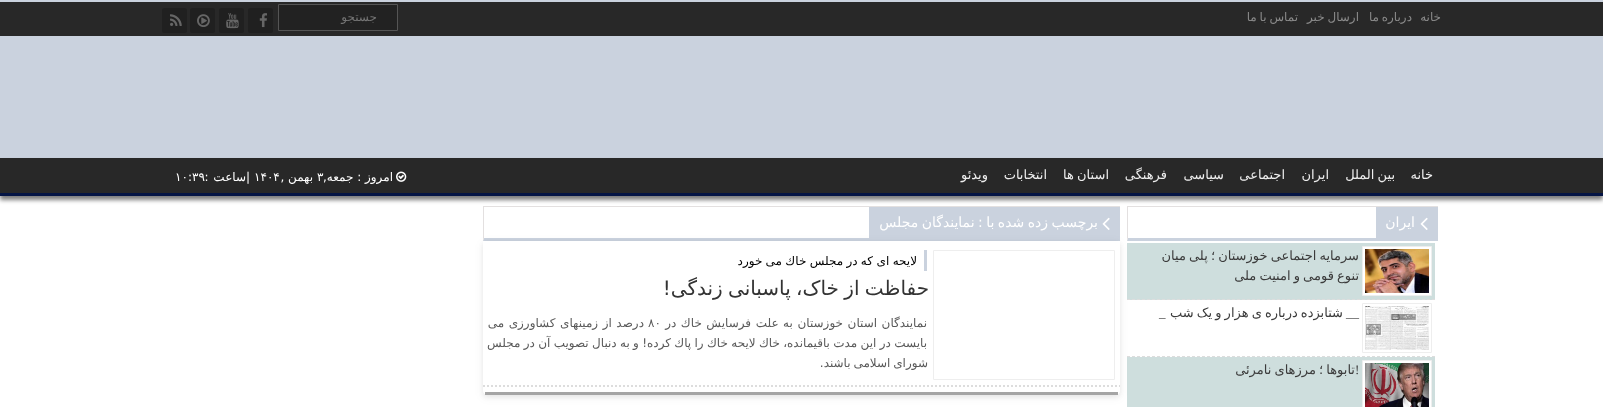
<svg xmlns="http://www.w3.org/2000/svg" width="1603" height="407">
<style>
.a{font:12px DejaVu Sans;direction:rtl;fill:#8a8a8a}
.b{font:12px DejaVu Sans;direction:rtl;fill:#757575}
.c{font:13px DejaVu Sans;direction:rtl;fill:#eee}
.d{font:12px DejaVu Sans;direction:rtl;fill:#fff}
.e{font:12px DejaVu Sans;fill:#fff}
.f{font:14px DejaVu Sans;direction:rtl;fill:#fff}
.g{font:13px DejaVu Sans;direction:rtl;fill:#3b3b3b}
.h{font:13px Liberation Serif;fill:#3b3b3b}
.i{font:12px DejaVu Sans;direction:rtl;fill:#000}
.j{font:20px DejaVu Sans;direction:rtl;fill:#333}
.k{font:12px DejaVu Sans;direction:rtl;fill:#5a5a5a}
.l{font:12px DejaVu Sans;fill:#5a5a5a}
</style>
<defs>
<clipPath id="clip1"><path d="M1137 246h222v40H1137z"/></clipPath>
</defs>
<rect width="100%" height="100%" fill="#fff"/>
<path fill="#282828" d="M0 2h1603v34H0z"/>
<path fill="#cad2de" d="M0 0h1603v2H0z"/>
<path fill="#222" stroke="#555" d="M278.5 4.5h119v26H278.5z"/>
<rect fill="#202020" x="248" y="8" width="25" height="25" rx="2.5"/>
<image href="1.png" x="259" y="13" width="8" height="15"/>
<rect fill="#202020" x="219" y="8" width="25" height="25" rx="2.5"/>
<image href="2.png" x="226" y="13" width="13" height="16"/>
<rect fill="#202020" x="190" y="8" width="25" height="25" rx="2.5"/>
<image href="3.png" x="197" y="14" width="13" height="13"/>
<rect fill="#202020" x="162" y="8" width="25" height="25" rx="2.5"/>
<image href="4.png" x="170" y="14" width="12" height="12"/>
<path fill="#cad2de" d="M0 36h1603v122H0z"/>
<path fill="#00000080" filter="blur(2px)" d="M0 162h1603v38H0z"/>
<path fill="#282828" d="M0 158h1603v35H0z"/>
<path fill="#051545" d="M0 193h1603v3H0z"/>
<image href="5.png" x="396" y="171" width="11" height="11"/>
<path fill="#e3e0e0" d="M1127 206h311v1H1127z"/>
<path fill="#cad2de" d="M1438 241h-311l1-3h310z"/>
<path fill="#e3e0e0" d="M1127 241v-35l1 1v31z"/>
<path fill="#cad2de" d="M1376 207h62v31H1376z"/>
<image href="6.png" x="1420" y="217" width="8" height="13"/>
<path fill="#cededd" d="M1127 243h308v57H1127z"/>
<path fill="none" stroke="#ddd" stroke-dasharray="3 2" d="M1127 299.5h308"/>
<path fill="#fff" stroke="#eee" d="M1362.5 246.5h69v49H1362.5z"/>
<image href="7.png" x="1365" y="249" width="64" height="44"/>
<path fill="none" stroke="#ddd" stroke-dasharray="3 2" d="M1127 356.5h308"/>
<path fill="none" stroke="#eee" d="M1362.5 303.5h69v49H1362.5z"/>
<image href="8.png" x="1365" y="306" width="64" height="44"/>
<path fill="#cededd" d="M1127 357h308v50H1127z"/>
<path fill="#fff" stroke="#eee" d="M1362.5 360.5h69v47H1362.5z"/>
<image href="9.png" x="1365" y="363" width="64" height="44"/>
<path fill="#e3e0e0" d="M483 206h637v1H483z"/>
<path fill="#cad2de" d="M1120 241h-637l1-3h636z"/>
<path fill="#e3e0e0" d="M483 241v-35l1 1v31z"/>
<path fill="#cad2de" d="M869 207h251v31H869z"/>
<image href="6.png" x="1102" y="217" width="8" height="13"/>
<rect fill="#0000000f" filter="blur(5px)" x="483" y="243" width="637" height="154" rx="4"/>
<rect fill="#0000000f" filter="blur(2.5px)" x="483" y="243" width="637" height="154" rx="4"/>
<path fill="#fff" d="M483 241h637v150c0 2-2 4-4 4h-629c-2 0-4-2-4-4z"/>
<path fill="#a5a5a5" d="M485 392h633v3H485z"/>
<path fill="none" stroke="#ddd" stroke-width="2" stroke-dasharray="2 2" d="M483 386h637"/>
<path fill="none" stroke="#eee" d="M933.5 250.5h181v129H933.5z"/>
<path fill="#cad2de" d="M924 250h3v21H924z"/>
<text class="a" x="1441" y="21">خانه</text>
<text class="a" x="1412" y="21" word-spacing="-1">درباره ما</text>
<text class="a" x="1359" y="21" word-spacing="-1">ارسال خبر</text>
<text class="a" x="1298" y="21" word-spacing="-1">تماس با ما</text>
<text class="b" x="377" y="21">جستجو</text>
<text class="c" x="1433" y="179">خانه</text>
<text class="c" x="1395" y="179" word-spacing="-1">بین الملل</text>
<text class="c" x="1329" y="179">ایران</text>
<text class="c" x="1285" y="179">اجتماعی</text>
<text class="c" x="1224" y="179">سیاسی</text>
<text class="c" x="1167" y="179">فرهنگی</text>
<text class="c" x="1109" y="179" word-spacing="-1">استان ها</text>
<text class="c" x="1047" y="179">انتخابات</text>
<text class="c" x="988" y="179">ویدئو</text>
<text class="d" x="393" y="181">امروز : جمعه,</text>
<text class="e" x="317" y="181">۳</text>
<text class="d" x="313" y="181">بهمن ,</text>
<text class="e" x="254" y="181">۱۴۰۴</text>
<text class="e" x="246" y="181">|</text>
<text class="d" x="246" y="181" word-spacing="1">ساعت :</text>
<text class="e" x="175" y="181">۱۰:۳۹</text>
<text class="f" x="1415" y="227">ایران</text>
<g clip-path="url(#clip1)">
<text class="g" x="1359" y="260" word-spacing="-1">سرمایه اجتماعی خوزستان ؛ پلی میان</text>
<text class="g" x="1359" y="280" word-spacing="-1">تنوع قومی و امنیت ملی</text>
</g>
<text class="g" x="1343" y="317" word-spacing="-1">شتابزده درباره ی هزار و یک شب</text>
<text class="h" x="1346" y="317">__</text>
<text class="h" x="1159" y="317">_</text>
<text class="g" x="1355" y="374" word-spacing="-1">تابوها ؛ مرزهای نامرئی</text>
<text class="h" x="1355" y="374">!</text>
<text class="f" x="1098" y="227" word-spacing="-1">برچسب زده شده با : نمایندگان مجلس</text>
<text class="i" x="917" y="265" word-spacing="-0.5">لایحه ای</text>
<text class="i" x="873" y="265" word-spacing="-0.5">که در مجلس خاك می خورد</text>
<text class="j" x="929" y="295" word-spacing="-1">حفاظت از خاک، پاسبانی زندگی!</text>
<text class="k" x="927" y="327" word-spacing="0.75">نمایندگان استان خوزستان به علت فرسایش خاك در</text>
<text class="l" x="648" y="327">٨٠</text>
<text class="k" x="644" y="327" word-spacing="0.75">درصد از زمینهای كشاورزی می</text>
<text class="k" x="927" y="347" word-spacing="-0.5">بایست در این مدت باقیمانده، خاك لایحه خاك را پاك كرده! و به دنبال تصویب آن در مجلس</text>
<text class="k" x="928" y="367" word-spacing="-1">شورای اسلامی باشند.</text>
</svg>
